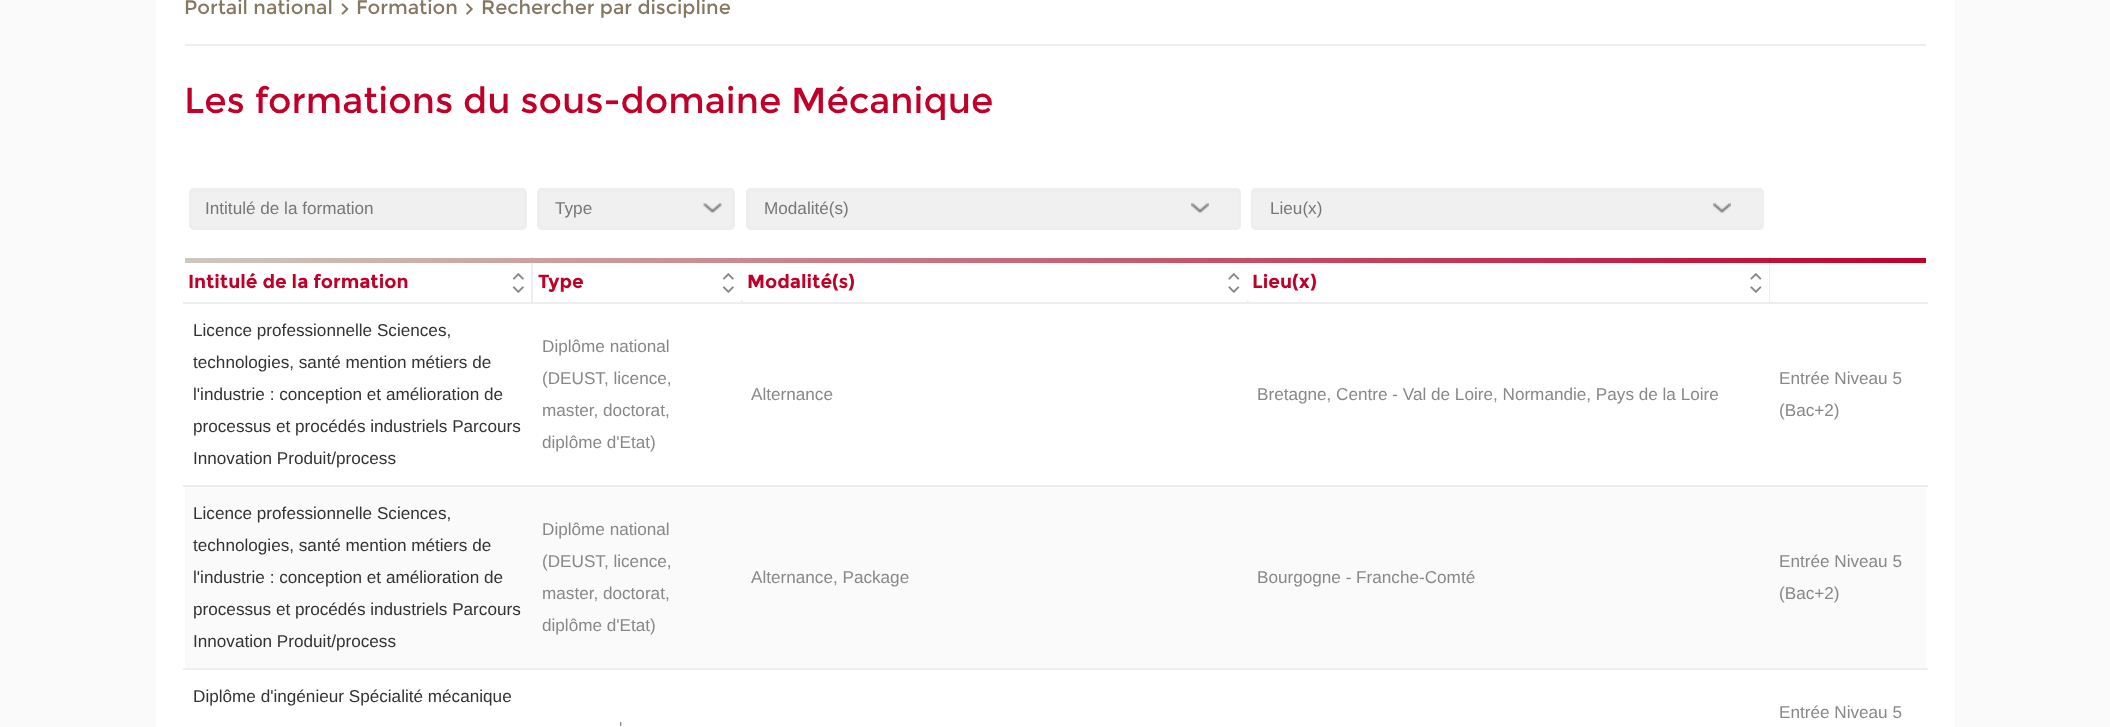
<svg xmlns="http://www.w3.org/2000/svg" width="2110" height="727">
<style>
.a{font:19.5px Montserrat;fill:#857761}
.b{font:36px Montserrat;fill:#c1002a}
.c{font:17.15px Liberation Sans;fill:#777}
.d{font:bold 18.9px Montserrat;fill:#c1002a}
.e{font:17.15px Liberation Sans;fill:#333}
.f{font:17.15px Liberation Sans;fill:#888}
</style>
<defs>
<linearGradient id="g1" gradientUnits="userSpaceOnUse" x1="185" y1="260" x2="1926" y2="260"><stop offset="0" stop-color="#cfc8c0"/><stop offset="1" stop-color="#c1002a"/></linearGradient>
</defs>
<rect width="100%" height="100%" fill="#fafafa"/>
<path fill="#fff" d="M156 0h1799v727H156z"/>
<path fill="#eee" d="M185 44h1741v2H185z"/>
<image href="1.png" x="341" y="3" width="8" height="12"/>
<image href="2.png" x="466" y="3" width="7" height="12"/>
<rect fill="#f0f0f0" stroke="#eee" stroke-width="3" x="190.5" y="189.5" width="335" height="39" rx="3.5"/>
<rect fill="#f0f0f0" x="537" y="188" width="198" height="42" rx="5"/>
<image href="3.png" x="703" y="203" width="19" height="10"/>
<rect fill="none" stroke="#eee" stroke-width="3" x="538.5" y="189.5" width="195" height="39" rx="3.5"/>
<rect fill="#f0f0f0" x="746" y="188" width="495" height="42" rx="5"/>
<image href="4.png" x="1191" y="203" width="18" height="10"/>
<rect fill="none" stroke="#eee" stroke-width="3" x="747.5" y="189.5" width="492" height="39" rx="3.5"/>
<rect fill="#f0f0f0" x="1251" y="188" width="513" height="42" rx="5"/>
<image href="5.png" x="1713" y="203" width="18" height="10"/>
<rect fill="none" stroke="#eee" stroke-width="3" x="1252.5" y="189.5" width="510" height="39" rx="3.5"/>
<path fill="#eee" d="M1769 302h159v2H1769z"/>
<path fill="#eee" d="M1769 257h2v46H1769z"/>
<path fill="#eee" d="M1247 302h523v2H1247z"/>
<path fill="#eee" d="M1247 257h2v46H1247z"/>
<path fill="#eee" d="M741 302h507v2H741z"/>
<path fill="#eee" d="M741 257h2v46H741z"/>
<path fill="#eee" d="M531 302h212v2H531z"/>
<path fill="#eee" d="M531 257h2v46H531z"/>
<path fill="url(#g1)" d="M185 258h1741v5H185z"/>
<path fill="#eee" d="M183 302h350v2H183z"/>
<image href="6.png" x="512" y="273" width="12" height="7"/>
<image href="7.png" x="512" y="286" width="12" height="7"/>
<image href="6.png" x="722" y="273" width="12" height="7"/>
<image href="7.png" x="722" y="286" width="12" height="7"/>
<path fill="#fff" d="M741 263h2v37H741z"/>
<image href="8.png" x="1228" y="273" width="12" height="7"/>
<image href="9.png" x="1228" y="286" width="12" height="7"/>
<path fill="#fff" d="M1247 263h2v37H1247z"/>
<path fill="#fff" d="M1248 300h1v1H1248z"/>
<image href="8.png" x="1750" y="273" width="12" height="7"/>
<image href="9.png" x="1750" y="286" width="12" height="7"/>
<path fill="#fff" d="M1770 263h1v39H1770z"/>
<path fill="#eee" d="M183 485h1745v2H183z"/>
<path fill="#fafafa" d="M185 487h1741v181H185z"/>
<path fill="#eee" d="M183 668h1745v2H183z"/>
<text class="a" x="184" y="14">Portail national</text>
<text class="a" x="356" y="14">Formation</text>
<text class="a" x="481" y="14">Rechercher par discipline</text>
<text class="b" x="184" y="113">Les formations du sous-domaine Mécanique</text>
<text class="c" x="205" y="214">Intitulé de la formation</text>
<text class="c" x="555" y="214">Type</text>
<text class="c" x="764" y="214">Modalité(s)</text>
<text class="c" x="1270" y="214">Lieu(x)</text>
<text class="d" x="188" y="288">Intitulé de la formation</text>
<text class="d" x="538" y="288">Type</text>
<text class="d" x="747" y="288">Modalité(s)</text>
<text class="d" x="1252" y="288">Lieu(x)</text>
<text class="e" x="193" y="336">Licence professionnelle Sciences,</text>
<text class="e" x="193" y="368">technologies, santé mention métiers de</text>
<text class="e" x="193" y="400">l'industrie : conception et amélioration de</text>
<text class="e" x="193" y="432">processus et procédés industriels Parcours</text>
<text class="e" x="193" y="464">Innovation Produit/process</text>
<text class="f" x="542" y="352">Diplôme national</text>
<text class="f" x="542" y="384">(DEUST, licence,</text>
<text class="f" x="542" y="416">master, doctorat,</text>
<text class="f" x="542" y="448">diplôme d'Etat)</text>
<text class="f" x="751" y="400">Alternance</text>
<text class="f" x="1257" y="400">Bretagne, Centre - Val de Loire, Normandie, Pays de la Loire</text>
<text class="f" x="1779" y="384">Entrée Niveau 5</text>
<text class="f" x="1779" y="416">(Bac+2)</text>
<text class="e" x="193" y="519">Licence professionnelle Sciences,</text>
<text class="e" x="193" y="551">technologies, santé mention métiers de</text>
<text class="e" x="193" y="583">l'industrie : conception et amélioration de</text>
<text class="e" x="193" y="615">processus et procédés industriels Parcours</text>
<text class="e" x="193" y="647">Innovation Produit/process</text>
<text class="f" x="542" y="535">Diplôme national</text>
<text class="f" x="542" y="567">(DEUST, licence,</text>
<text class="f" x="542" y="599">master, doctorat,</text>
<text class="f" x="542" y="631">diplôme d'Etat)</text>
<text class="f" x="751" y="583">Alternance, Package</text>
<text class="f" x="1257" y="583">Bourgogne - Franche-Comté</text>
<text class="f" x="1779" y="567">Entrée Niveau 5</text>
<text class="f" x="1779" y="599">(Bac+2)</text>
<text class="e" x="193" y="702">Diplôme d'ingénieur Spécialité mécanique</text>
<text class="f" x="1779" y="718">Entrée Niveau 5</text>
<text class="f" x="619" y="734">'</text>
</svg>
